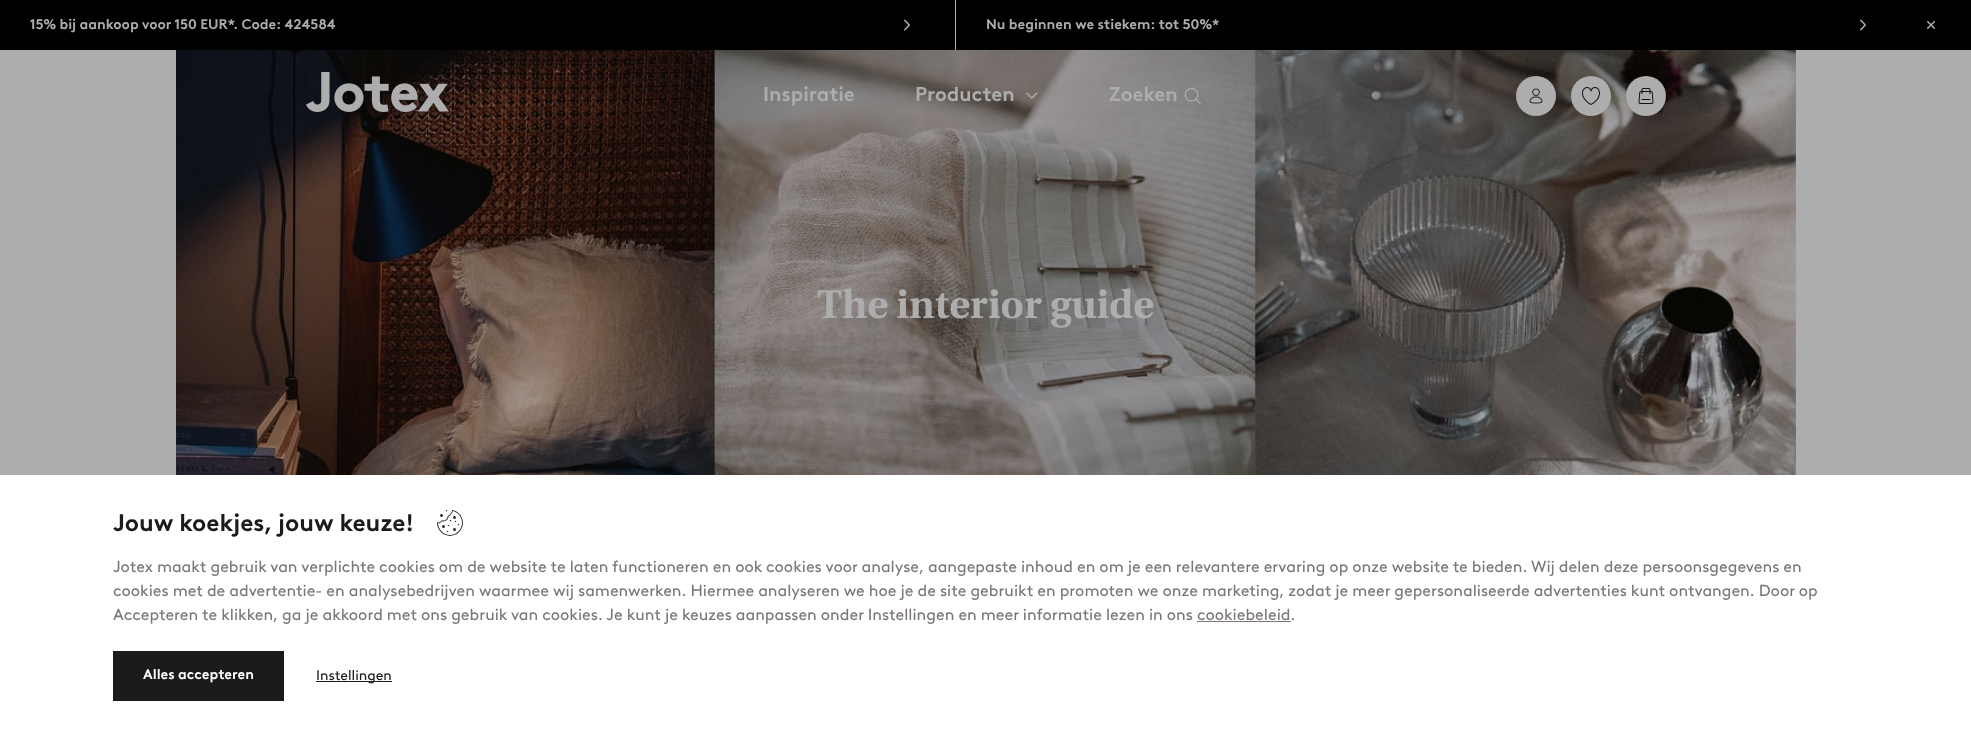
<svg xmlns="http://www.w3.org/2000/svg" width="1971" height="733">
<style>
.a{font:bold 14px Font;fill:#adadad}
.b{font:bold 20px Font;fill:#adadad}
.c{font:bold 40px Utopia;fill:#adadad}
.d{font:bold 24px Font;fill:#1c1b1a}
.e{font:16px Font;fill:#7d7773}
.f{font:bold 14px Font;fill:#fff}
.g{font:14px Font;fill:#1c1b1a}
</style>
<rect width="100%" height="100%" fill="#adadad"/>
<path fill="#000" d="M0 0h1971v50H0z"/>
<path fill="#adadad" d="M955 0h1v50H955z"/>
<image href="1.png" x="904" y="19" width="6" height="12"/>
<image href="1.png" x="1860" y="19" width="6" height="12"/>
<image href="2.png" x="1927" y="21" width="8" height="8"/>
<image href="9.png" x="176" y="50" width="1620" height="425"/>
<image href="3.png" x="306" y="72" width="143" height="40"/>
<image href="4.png" x="1026" y="92" width="12" height="7"/>
<image href="5.png" x="1184" y="87" width="17" height="17"/>
<circle fill="#adadad" cx="1536" cy="96" r="20"/>
<image href="6.png" x="1529" y="88" width="14" height="16"/>
<circle fill="#adadad" cx="1591" cy="96" r="20"/>
<image href="7.png" x="1582" y="87" width="18" height="18"/>
<circle fill="#adadad" cx="1646" cy="96" r="20"/>
<image href="8.png" x="1638" y="88" width="16" height="16"/>
<path fill="#fff" d="M0 475h1971v258H0z"/>
<image href="10.png" x="437" y="510" width="26" height="26"/>
<path fill="#7d7773" d="M1197 621h94v1H1197z"/>
<path fill="#1c1b1a" d="M113 651h171v50H113z"/>
<path fill="#1c1b1a" d="M316 681h76v1H316z"/>
<text class="a" x="30" y="29">15% bij aankoop voor 150 EUR*. Code: 424584</text>
<text class="a" x="986" y="29">Nu beginnen we stiekem: tot 50%*</text>
<text class="b" x="763" y="101">Inspiratie</text>
<text class="b" x="915" y="101">Producten</text>
<text class="b" x="1109" y="101">Zoeken</text>
<text class="c" x="817" y="318">The interior guide</text>
<text class="d" x="113" y="531">Jouw koekjes, jouw keuze!</text>
<text class="e" x="113" y="572">Jotex maakt gebruik van verplichte cookies om de website te laten functioneren en ook cookies voor analyse, aangepaste inhoud en om je een relevantere ervaring op onze website te bieden. Wij delen deze persoonsgegevens en</text>
<text class="e" x="113" y="596">cookies met de advertentie- en analysebedrijven waarmee wij samenwerken. Hiermee analyseren we hoe je de site gebruikt en promoten we onze marketing, zodat je meer gepersonaliseerde advertenties kunt ontvangen. Door op</text>
<text class="e" x="113" y="620">Accepteren te klikken, ga je akkoord met ons gebruik van cookies. Je kunt je keuzes aanpassen onder Instellingen en meer informatie lezen in ons cookiebeleid.</text>
<text class="f" x="143" y="679">Alles accepteren</text>
<text class="g" x="316" y="680">Instellingen</text>
</svg>
